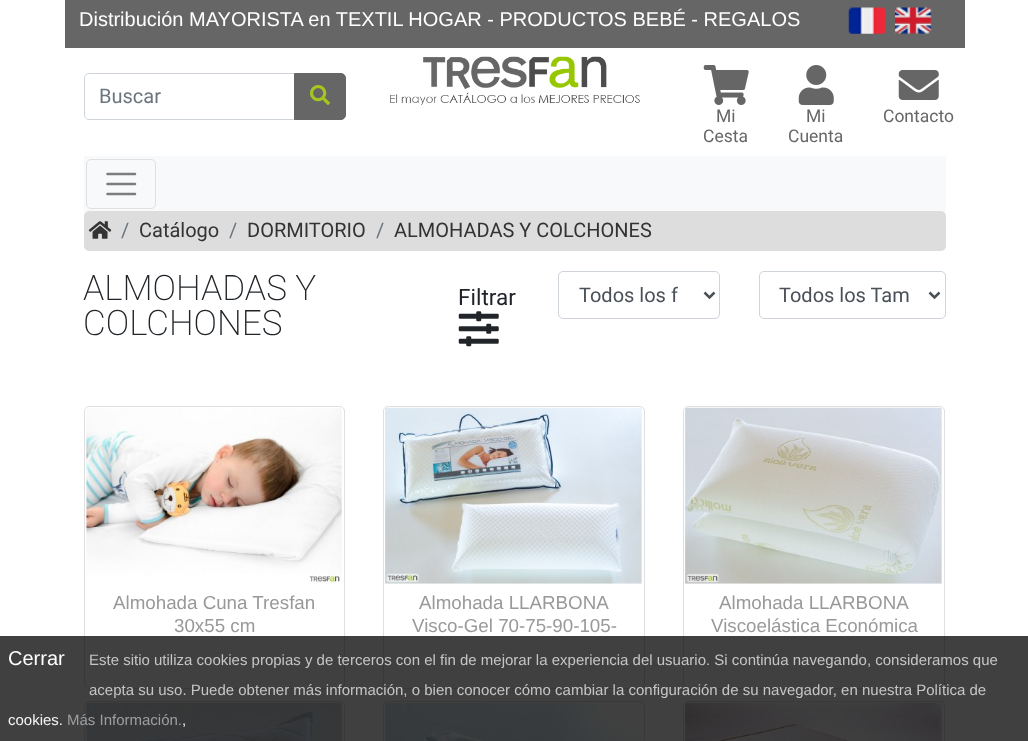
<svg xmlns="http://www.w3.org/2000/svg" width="1028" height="741">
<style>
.a{font:20px Liberation Sans;fill:#fff}
.b{font:20px Roboto;fill:#6c757d}
.c{font:17.5px Roboto;fill:#666}
.d{font:20px Roboto;fill:#333}
.e{font:200 35px Roboto;fill:#212529}
.f{font:22.5px Roboto;fill:#212529}
.g{font:20px Roboto;fill:#495057}
.h{font:18.75px Liberation Sans;fill:#999}
.i{font:15px Liberation Sans;fill:#c5c5c5}
.j{font:15px Liberation Sans;fill:#f5f5f5}
.k{font:15px Liberation Sans;fill:#9e9f9f}
.l{font:15px Liberation Sans;fill:#e9ebed}
</style>
<rect width="100%" height="100%" fill="#fff"/>
<path fill="#666" d="M65 0h900v48H65z"/>
<image href="1.png" x="848" y="7" width="37" height="27"/>
<image href="2.png" x="895" y="7" width="37" height="27"/>
<path fill="none" stroke="#ced4da" d="M89 73.5h205.5v46h-205.5c-2.5 0-4.5-2-4.5-4.5v-37c0-2.5 2-4.5 4.5-4.5z"/>
<path fill="#666" stroke="#666" d="M294.5 73.5h46.5c2.5 0 4.5 2 4.5 4.5v37c0 2.5-2 4.5-4.5 4.5h-46.5z"/>
<image href="3.png" x="310" y="85" width="20" height="20"/>
<image href="4.png" x="390" y="56" width="250" height="50"/>
<image href="5.png" x="703" y="65" width="46" height="40"/>
<image href="6.png" x="798" y="65" width="36" height="40"/>
<image href="7.png" x="898" y="70" width="41" height="30"/>
<path fill="#f8f9fa" d="M84 156h862v55H84z"/>
<rect fill="none" stroke="#dfe0e1" x="86.5" y="159.5" width="69" height="49" rx="4.5"/>
<path fill="none" stroke="#7c7d7d" stroke-width="2.5" stroke-linecap="round" d="M107.5 174h27.5m-27.5 10h27.5m-27.5 10h27.5"/>
<rect fill="#ddd" x="84" y="211" width="862" height="40" rx="5"/>
<image href="8.png" x="88" y="221" width="24" height="18"/>
<image href="9.png" x="458" y="311" width="41" height="36"/>
<rect fill="none" stroke="#ced4da" x="558.5" y="271.5" width="161" height="47" rx="4.5"/>
<path fill="none" stroke="#495057" stroke-width="2.5" d="M704.5 292.5l5 5l5-5"/>
<rect fill="none" stroke="#ced4da" x="759.5" y="271.5" width="186" height="47" rx="4.5"/>
<path fill="none" stroke="#495057" stroke-width="2.5" d="M929.5 292.5l5 5l5-5"/>
<rect fill="none" stroke="#dfdfdf" x="84.5" y="406.5" width="260" height="282" rx="4.5"/>
<image href="10.png" x="85" y="408" width="257" height="175"/>
<rect fill="none" stroke="#dfdfdf" x="383.5" y="406.5" width="261" height="282" rx="4.5"/>
<image href="11.png" x="384" y="407" width="258" height="177"/>
<rect fill="none" stroke="#dfdfdf" x="683.5" y="406.5" width="261" height="282" rx="4.5"/>
<image href="12.png" x="684" y="407" width="258" height="177"/>
<rect fill="none" stroke="#dfdfdf" x="84.5" y="701.5" width="260" height="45" rx="4.5"/>
<image href="13.png" x="85" y="702" width="257" height="39"/>
<rect fill="none" stroke="#dfdfdf" x="383.5" y="701.5" width="261" height="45" rx="4.5"/>
<image href="14.png" x="384" y="702" width="258" height="39"/>
<rect fill="none" stroke="#dfdfdf" x="683.5" y="701.5" width="261" height="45" rx="4.5"/>
<image href="15.png" x="684" y="702" width="258" height="39"/>
<path fill="#000000bf" d="M0 636h1028v105H0z"/>
<text class="a" x="79" y="26">Distribución MAYORISTA en TEXTIL HOGAR - PRODUCTOS BEBÉ - REGALOS</text>
<text class="b" x="99" y="103">Buscar</text>
<text class="c" x="716" y="122">Mi</text>
<text class="c" x="703" y="142">Cesta</text>
<text class="c" x="806" y="122">Mi</text>
<text class="c" x="788" y="142">Cuenta</text>
<text class="c" x="883" y="122">Contacto</text>
<text class="b" x="121" y="237">/</text>
<text class="d" x="139" y="237">Catálogo</text>
<text class="b" x="229" y="237">/</text>
<text class="d" x="247" y="237">DORMITORIO</text>
<text class="b" x="376" y="237">/</text>
<text class="d" x="394" y="237">ALMOHADAS Y COLCHONES</text>
<text class="e" x="83" y="300">ALMOHADAS Y</text>
<text class="e" x="83" y="335">COLCHONES</text>
<text class="f" x="458" y="305">Filtrar</text>
<text class="g" x="579" y="302">Todos los f</text>
<text class="g" x="779" y="302">Todos los Tam</text>
<text class="h" x="113" y="609">Almohada Cuna Tresfan</text>
<text class="h" x="174" y="632">30x55 cm</text>
<text class="h" x="419" y="609">Almohada LLARBONA</text>
<text class="h" x="412" y="632">Visco-Gel 70-75-90-105-</text>
<text class="h" x="719" y="609">Almohada LLARBONA</text>
<text class="h" x="711" y="632">Viscoelástica Económica</text>
<text class="a" x="8" y="665">Cerrar</text>
<text class="i" x="89" y="665">Este sitio utiliza cookies propias y de terceros con el fin de mejorar la experiencia del usuario. Si continúa navegando, consideramos que</text>
<text class="i" x="89" y="695">acepta su uso. Puede obtener más información, o bien conocer cómo cambiar la configuración de su navegador, en nuestra Política de</text>
<text class="j" x="8" y="725">cookies.</text>
<text class="k" x="67" y="725">Más Información.</text>
<text class="l" x="182" y="725">,</text>
</svg>
